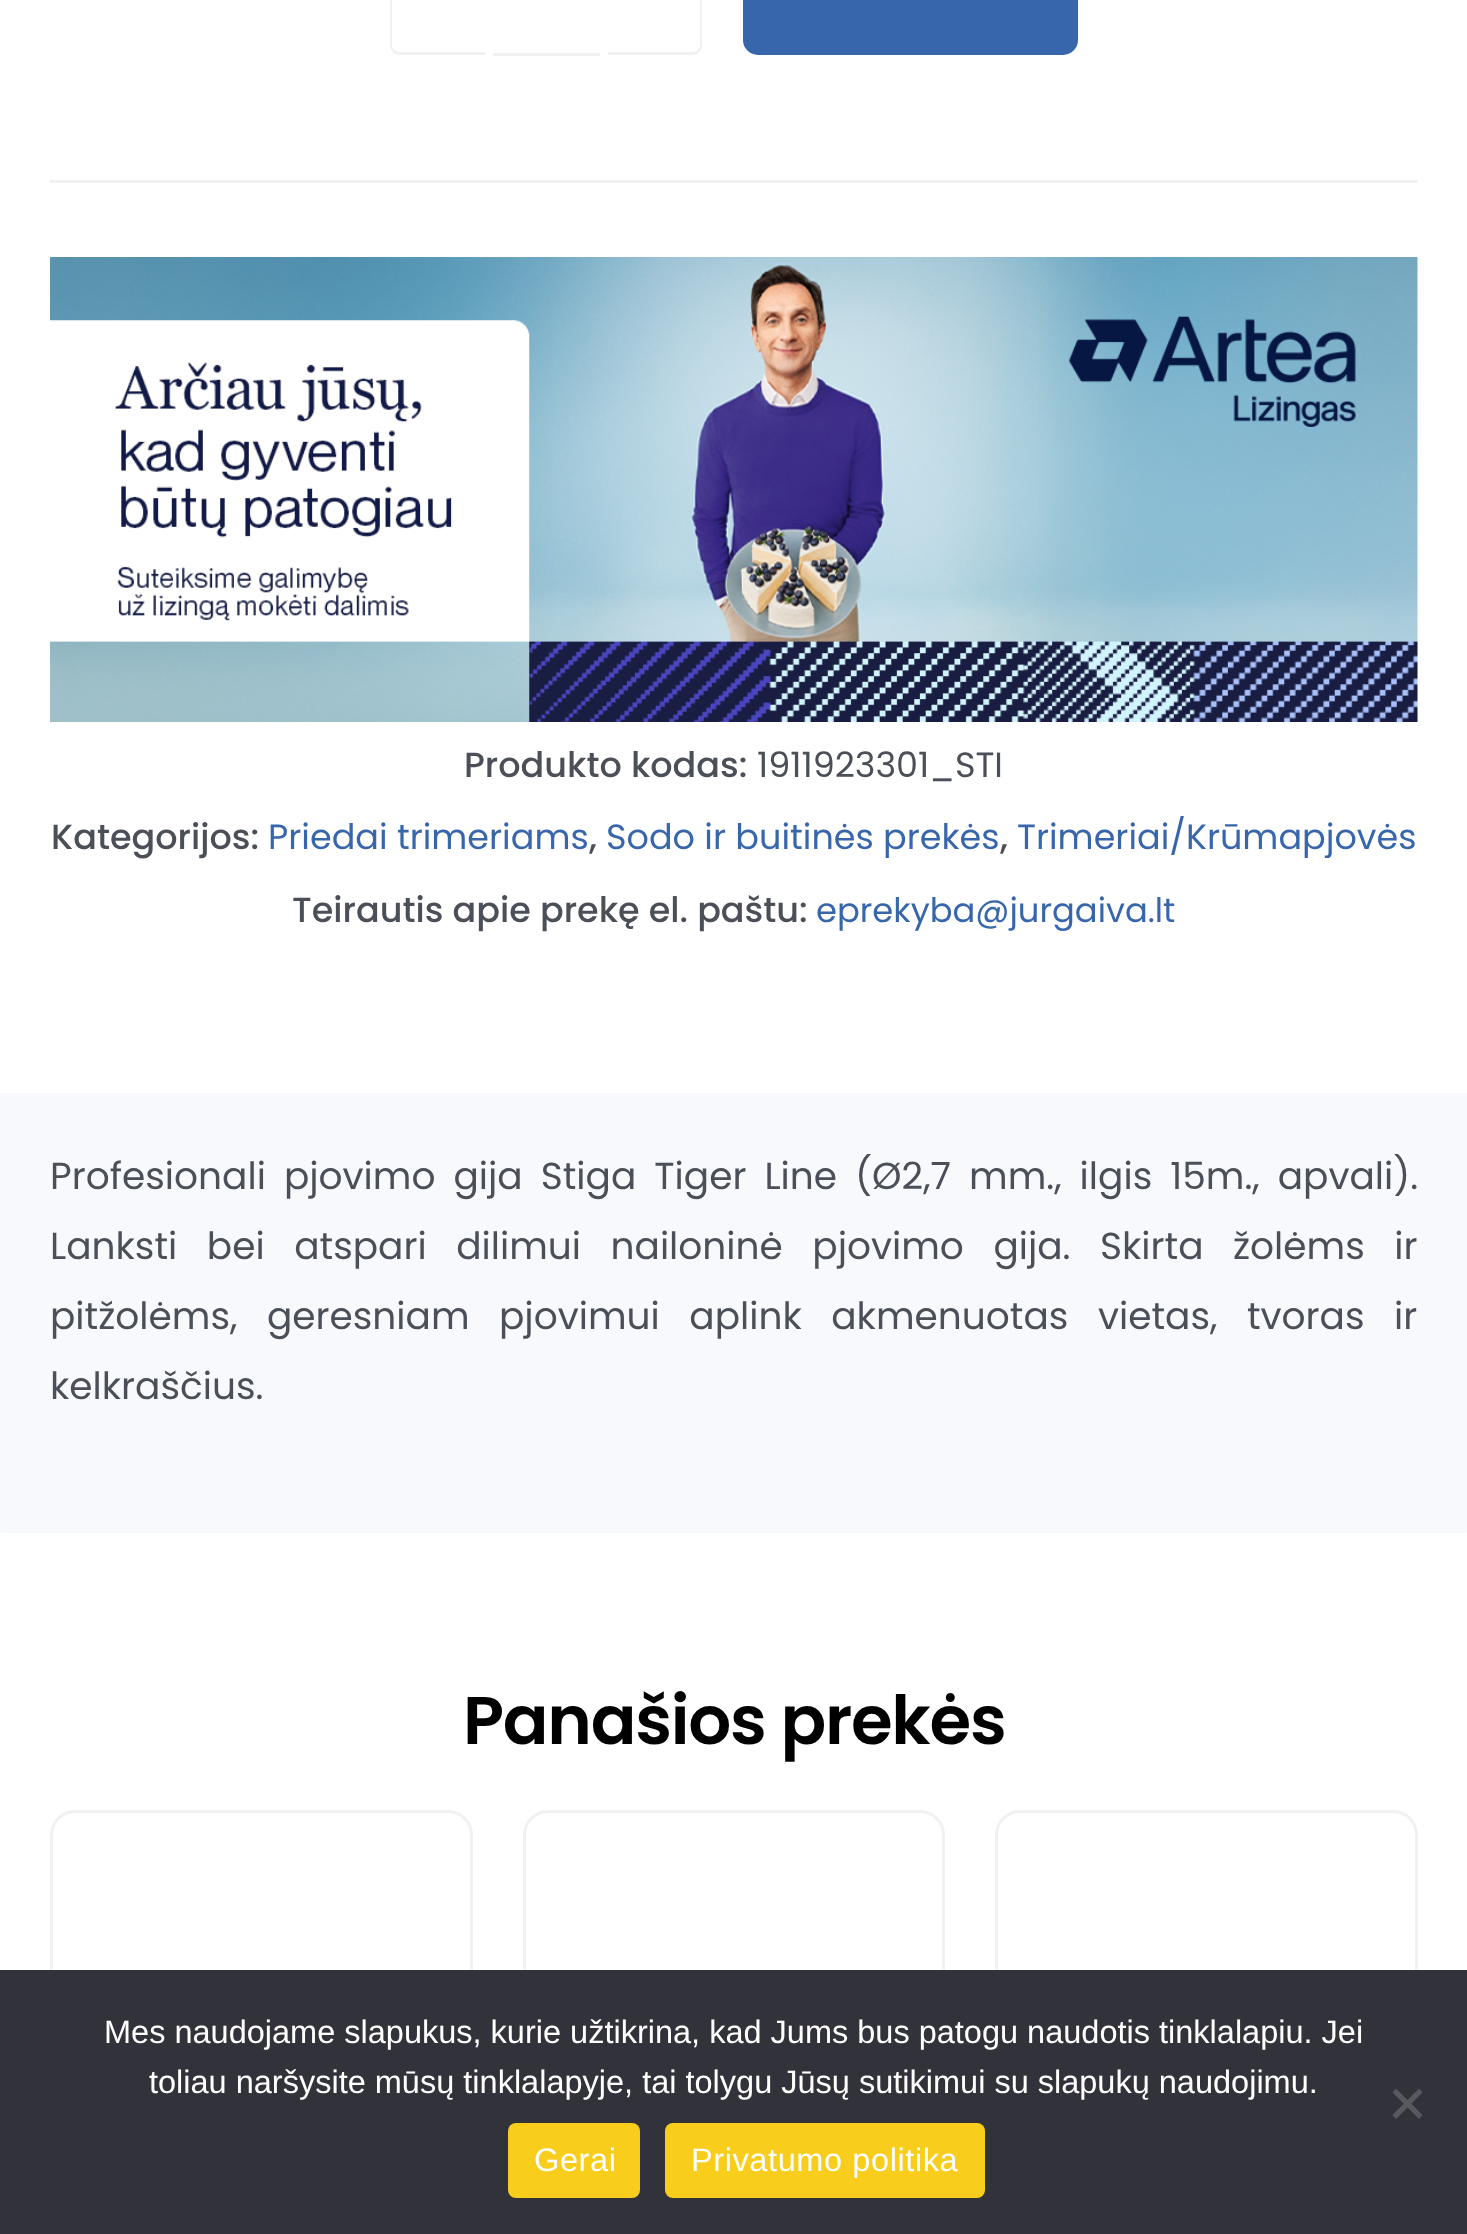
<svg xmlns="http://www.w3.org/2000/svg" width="1467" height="2234">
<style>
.a{font:500 35px Poppins;fill:#4b4f58}
.b{font:35px Poppins;fill:#4b4f58}
.c{font:35px Poppins;fill:#3766ac}
.d{font:33.75px Poppins;fill:#3766ac}
.e{font:37.5px Poppins;fill:#4b4f58}
.f{font:600 67.5px Poppins;letter-spacing:-1.25px;fill:#000}
.g{font:32.5px Liberation Sans;fill:#fff}
.h{font:32.5px Liberation Sans;letter-spacing:0.6px;fill:#fff}
</style>
<rect width="100%" height="100%" fill="#fff"/>
<path fill="#f0f1f3" fill-rule="evenodd" d="M400-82h85v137h-85c-6 0-10-4-10-10v-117c0-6 4-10 10-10zm0 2h85v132h-85c-4 0-8-3-8-7v-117c0-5 4-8 8-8z"/>
<path fill="#f0f1f3" d="M493 53h107v3H493z"/>
<path fill="#f0f1f3" fill-rule="evenodd" d="M608-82h84c6 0 10 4 10 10v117c0 6-4 10-10 10h-84zm0 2h84c5 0 8 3 8 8v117c0 4-3 7-8 7h-84z"/>
<rect fill="#3766ac" x="743" y="-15" width="335" height="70" rx="15"/>
<path fill="#f0f1f3" d="M50 180h1368v3H50z"/>
<image href="1.png" x="50" y="257" width="1368" height="465"/>
<rect fill="#f7f9fc" x="-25" y="1093" width="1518" height="440" rx="30"/>
<rect fill="none" stroke="#f0f1f3" stroke-width="3" x="51.5" y="1811.5" width="420" height="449" rx="23.5"/>
<rect fill="none" stroke="#f0f1f3" stroke-width="3" x="524.5" y="1811.5" width="419" height="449" rx="23.5"/>
<rect fill="none" stroke="#f0f1f3" stroke-width="3" x="996.5" y="1811.5" width="420" height="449" rx="23.5"/>
<path fill="#32323a" d="M0 1970h1467v264H0z"/>
<path fill="#59595d" d="M1419 2088.5l3.5 4l-26.5 26.5l-3.5-4z"/>
<path fill="#59595d" d="M1392.5 2092.5l3.5-4l26.5 26.5l-3.5 4z"/>
<rect fill="#f9cd1b" x="508" y="2123" width="132" height="75" rx="8"/>
<rect fill="#f9cd1b" x="665" y="2123" width="320" height="75" rx="8"/>
<text class="a" x="464" y="777">Produkto kodas:</text>
<text class="b" x="757" y="777">1911923301_STI</text>
<text class="a" x="51" y="849">Kategorijos:</text>
<text class="c" x="268" y="849">Priedai trimeriams</text>
<text class="a" x="589" y="849">,</text>
<text class="c" x="606" y="849">Sodo ir buitinės prekės</text>
<text class="a" x="1000" y="849">,</text>
<text class="c" x="1017" y="849">Trimeriai/Krūmapjovės</text>
<text class="a" x="292" y="922">Teirautis apie prekę el. paštu:</text>
<text class="d" x="816" y="922">eprekyba@jurgaiva.lt</text>
<text class="e" x="50" y="1189" word-spacing="8">Profesionali pjovimo gija Stiga Tiger Line (Ø2,7 mm., ilgis 15m., apvali).</text>
<text class="e" x="50" y="1259" word-spacing="19.5">Lanksti bei atspari dilimui nailoninė pjovimo gija. Skirta žolėms ir</text>
<text class="e" x="50" y="1329" word-spacing="19.5">pitžolėms, geresniam pjovimui aplink akmenuotas vietas, tvoras ir</text>
<text class="e" x="50" y="1399">kelkraščius.</text>
<text class="f" x="463" y="1744">Panašios prekės</text>
<text class="g" x="104" y="2043">Mes naudojame slapukus, kurie užtikrina, kad Jums bus patogu naudotis tinklalapiu. Jei</text>
<text class="g" x="149" y="2093">toliau naršysite mūsų tinklalapyje, tai tolygu Jūsų sutikimui su slapukų naudojimu.</text>
<text class="h" x="534" y="2171">Gerai</text>
<text class="h" x="691" y="2171">Privatumo politika</text>
</svg>
